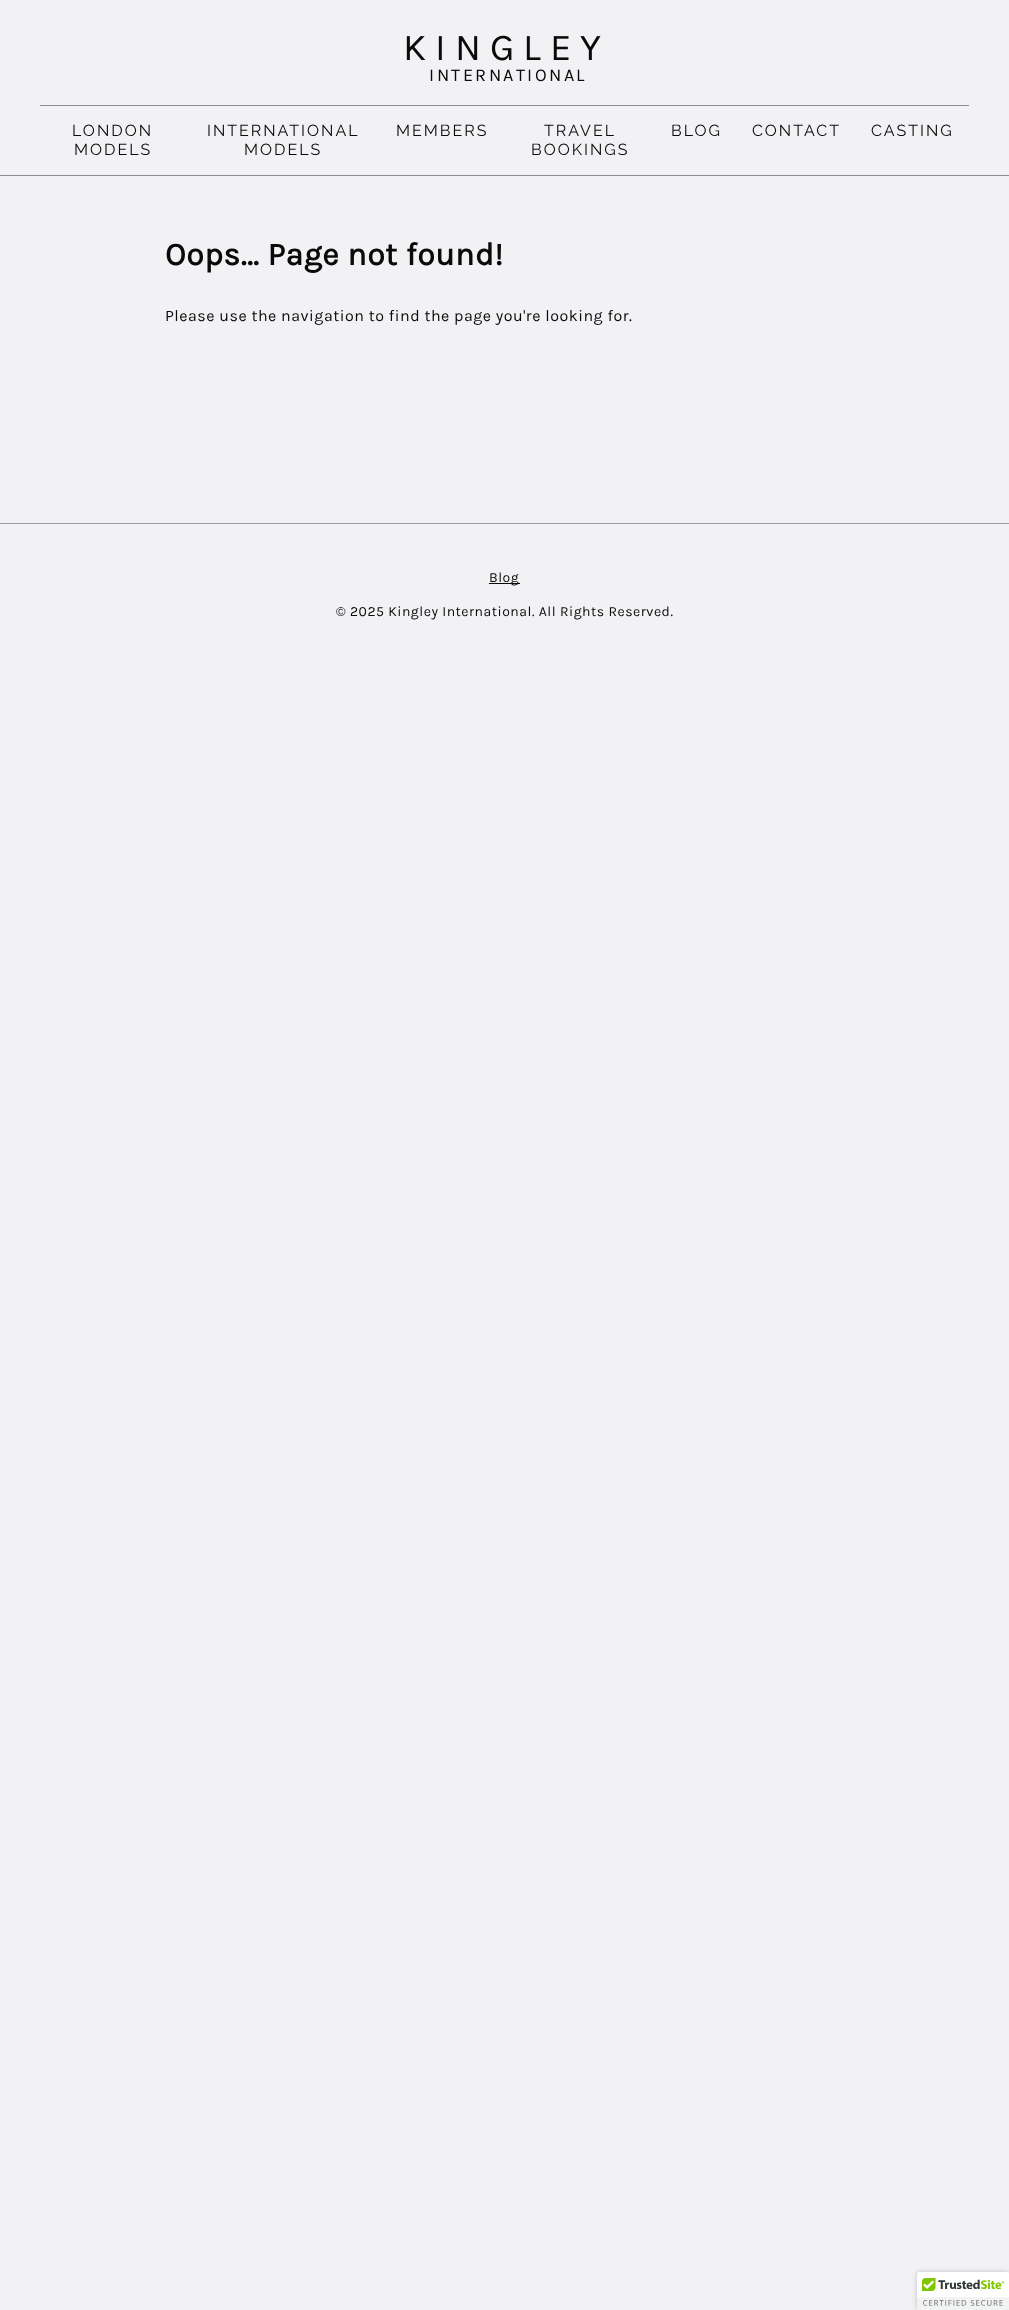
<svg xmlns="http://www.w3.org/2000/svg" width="1009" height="2310">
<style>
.a{font:100 16px Raleway;letter-spacing:2px;fill:#0a0a0a}
.b{font:bold 32px Karla;letter-spacing:0.5px;fill:#0a0a0a}
.c{font:16px Karla;letter-spacing:0.5px;fill:#0a0a0a}
.d{font:14px Karla;letter-spacing:0.5px;fill:#0a0a0a}
</style>
<rect width="100%" height="100%" fill="#f2f2f5"/>
<path fill="#8d8d90" d="M0 175h1009v1H0z"/>
<image href="1.png" x="406" y="35" width="195" height="47"/>
<path fill="#8d8d90" d="M40 105h929v1H40z"/>
<path fill="#9c9c9f" d="M0 523h1009v1H0z"/>
<path fill="#0a0a0a" d="M489 583h31v1H489z"/>
<rect fill="#00000033" filter="blur(2.5px)" x="917" y="2272" width="92" height="38" rx="2"/>
<path fill="#fff" d="M919 2272h90v38h-92v-36c0-1 1-2 2-2z"/>
<image href="2.png" x="917" y="2272" width="92" height="38"/>
<text class="a" x="72" y="136">LONDON</text>
<text class="a" x="74" y="155">MODELS</text>
<text class="a" x="207" y="136">INTERNATIONAL</text>
<text class="a" x="244" y="155">MODELS</text>
<text class="a" x="396" y="136">MEMBERS</text>
<text class="a" x="544" y="136">TRAVEL</text>
<text class="a" x="531" y="155">BOOKINGS</text>
<text class="a" x="671" y="136">BLOG</text>
<text class="a" x="752" y="136">CONTACT</text>
<text class="a" x="871" y="136">CASTING</text>
<text class="b" x="165" y="265">Oops... Page not found!</text>
<text class="c" x="165" y="321">Please use the navigation to find the page you're looking for.</text>
<text class="d" x="489" y="582">Blog</text>
<text class="d" x="336" y="616">© 2025 Kingley International. All Rights Reserved.</text>
</svg>
